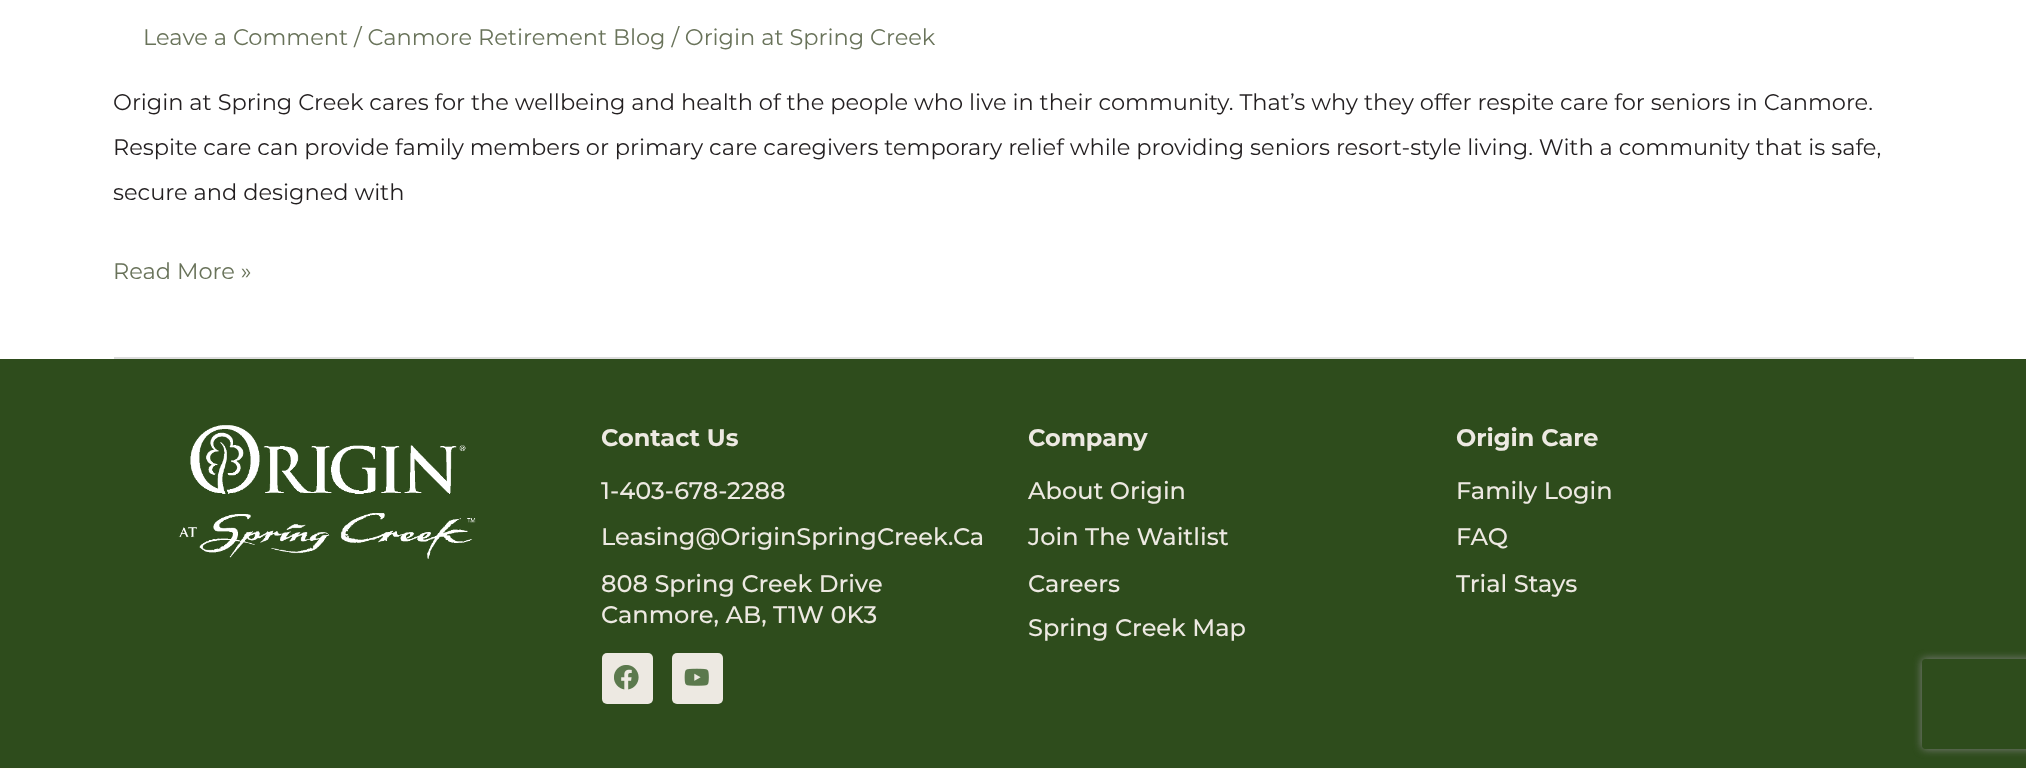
<svg xmlns="http://www.w3.org/2000/svg" width="2026" height="769">
<style>
.a{font:22.5px Montserrat;fill:#69735a}
.b{font:22.5px Montserrat;fill:#231f20}
.c{font:bold 24px Montserrat;fill:#ede9e2}
.d{font:500 24px Montserrat;fill:#ede9e2}
</style>
<defs>
<clipPath id="clip1"><path d="M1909 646h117v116h-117zm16 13h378c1.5 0 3 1.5 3 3v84c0 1.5-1.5 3-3 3h-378c-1.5 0-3-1.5-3-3v-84c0-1.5 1.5-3 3-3z" clip-rule="evenodd"/></clipPath>
</defs>
<rect width="100%" height="100%" fill="#fff"/>
<path fill="#ddd" d="M114 357h1800v2H114z"/>
<path fill="#fffaf5" d="M0 768h2026v1H0z"/>
<path fill="#2e4c1c" d="M0 359h2026v409H0z"/>
<image href="1.png" x="178" y="425" width="298" height="134"/>
<rect fill="#ede9e2" x="602" y="653" width="51" height="51" rx="5"/>
<image href="2.png" x="614" y="665" width="25" height="25"/>
<rect fill="#ede9e2" x="672" y="653" width="51" height="51" rx="5"/>
<image href="3.png" x="684" y="668" width="25" height="18"/>
<g clip-path="url(#clip1)">
<rect fill="#808080" filter="blur(4px)" x="1922" y="659" width="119" height="90" rx="3"/>
</g>
<text class="a" x="143" y="45">Leave a Comment / Canmore Retirement Blog / Origin at Spring Creek</text>
<text class="b" x="113" y="110">Origin at Spring Creek cares for the wellbeing and health of the people who live in their community. That’s why they offer respite care for seniors in Canmore.</text>
<text class="b" x="113" y="155">Respite care can provide family members or primary care caregivers temporary relief while providing seniors resort-style living. With a community that is safe,</text>
<text class="b" x="113" y="200">secure and designed with</text>
<text class="a" x="113" y="279">Read More »</text>
<text class="c" x="601" y="446">Contact Us</text>
<text class="d" x="601" y="499">1-403-678-2288</text>
<text class="d" x="601" y="545">Leasing@OriginSpringCreek.Ca</text>
<text class="d" x="601" y="592">808 Spring Creek Drive</text>
<text class="d" x="601" y="623">Canmore, AB, T1W 0K3</text>
<text class="c" x="1028" y="446">Company</text>
<text class="d" x="1028" y="499">About Origin</text>
<text class="d" x="1028" y="545">Join The Waitlist</text>
<text class="d" x="1028" y="592">Careers</text>
<text class="d" x="1028" y="636">Spring Creek Map</text>
<text class="c" x="1456" y="446">Origin Care</text>
<text class="d" x="1456" y="499">Family Login</text>
<text class="d" x="1456" y="545">FAQ</text>
<text class="d" x="1456" y="592">Trial Stays</text>
</svg>
